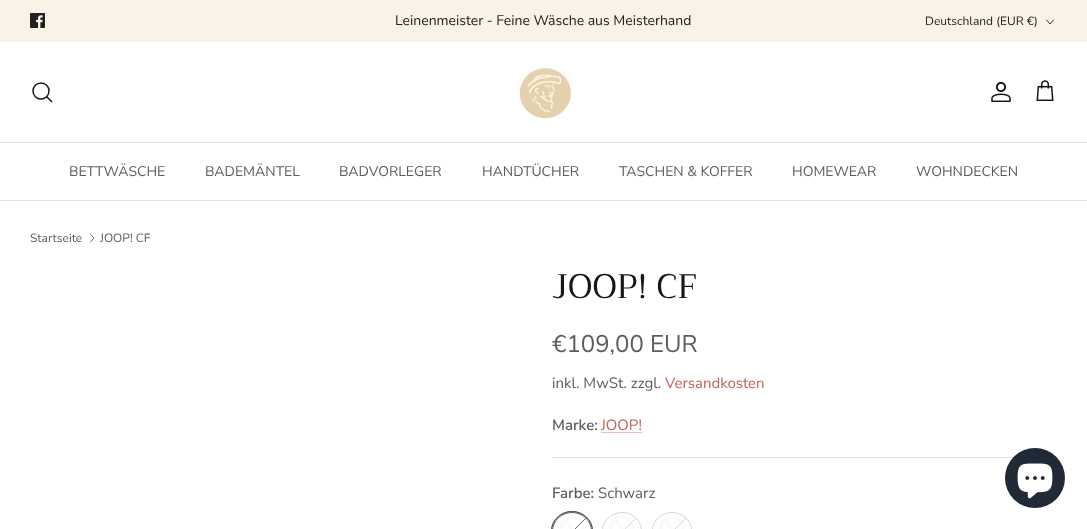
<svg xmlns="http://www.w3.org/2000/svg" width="1087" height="529">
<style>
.a{font:14px Nunito Sans;fill:#212121}
.b{font:12px Nunito Sans;fill:#212121}
.c{font:14px Nunito Sans;fill:#5c5c5c}
.d{font:12px Nunito Sans;fill:#5c5c5c}
.e{font:34px Trirong;fill:#171717}
.f{font:24px Nunito Sans;fill:#5c5c5c}
.g{font:15px Nunito Sans;fill:#5c5c5c}
.h{font:15px Nunito Sans;fill:#c16452}
.i{font:600 15px Nunito Sans;fill:#5c5c5c}
</style>
<defs>
<clipPath id="clip1"><rect x="552" y="512" width="40" height="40" rx="20"/></clipPath>
<clipPath id="clip2"><rect x="602" y="512" width="40" height="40" rx="20"/></clipPath>
<clipPath id="clip3"><rect x="652" y="512" width="40" height="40" rx="20"/></clipPath>
</defs>
<rect width="100%" height="100%" fill="#fff"/>
<path fill="#faf2e6" d="M0 0h1087v42H0z"/>
<image href="1.png" x="30" y="13" width="15" height="15"/>
<path fill="none" stroke="#212121" stroke-width="0.9" stroke-linecap="round" stroke-linejoin="round" d="M1046.5 20l3.5 4l3.5-4"/>
<path fill="#dfe3e8" d="M0 142h1087v1H0z"/>
<circle fill="none" stroke="#171717" stroke-width="1.5" cx="41" cy="91" r="8"/>
<path fill="none" stroke="#171717" stroke-width="1.5" stroke-linecap="square" d="M47 97l4.5 4.5"/>
<image href="2.png" x="519" y="68" width="53" height="51"/>
<image href="3.png" x="991" y="82" width="20" height="20"/>
<image href="4.png" x="1036" y="80" width="18" height="21"/>
<path fill="#dfe3e8" d="M0 200h1087v1H0z"/>
<path fill="none" stroke="#5c5c5c" stroke-width="0.9" stroke-linecap="round" stroke-linejoin="round" d="M90.5 242l3.5-4l-3.5-3.5"/>
<path fill="#e6c1ba" d="M601 432h41v1H601z"/>
<path fill="#e2e2e2" d="M552 457h462v1H552z"/>
<rect fill="none" stroke="#5c5c5c" x="551.5" y="511.5" width="41" height="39" rx="20.5"/>
<image href="5.png" x="552" y="512" width="40" height="17"/>
<rect fill="none" stroke="#5c5c5c" x="551.5" y="511.5" width="41" height="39" rx="20.5"/>
<g clip-path="url(#clip1)">
<path fill="none" stroke="#5c5c5c" stroke-width="0.9" d="M692 412l-240 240"/>
</g>
<rect fill="none" stroke="#5c5c5c" x="552.5" y="512.5" width="39" height="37" rx="19.5"/>
<image href="6.png" x="609" y="515" width="26" height="14"/>
<g clip-path="url(#clip2)">
<path fill="none" stroke="#d6d6d6" stroke-width="0.9" d="M742 412l-240 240"/>
</g>
<rect fill="none" stroke="#d6d6d6" x="602.5" y="512.5" width="39" height="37" rx="19.5"/>
<image href="6.png" x="659" y="515" width="26" height="14"/>
<g clip-path="url(#clip3)">
<path fill="none" stroke="#d6d6d6" stroke-width="0.9" d="M792 412l-240 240"/>
</g>
<rect fill="none" stroke="#d6d6d6" x="652.5" y="512.5" width="39" height="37" rx="19.5"/>
<circle fill="#202a36" cx="1035" cy="478" r="30"/>
<image href="7.png" x="1017" y="463" width="36" height="36"/>
<text class="a" x="395" y="25">Leinenmeister - Feine Wäsche aus Meisterhand</text>
<text class="b" x="925" y="25">Deutschland (EUR €)</text>
<text class="c" x="69" y="176">BETTWÄSCHE</text>
<text class="c" x="205" y="176">BADEMÄNTEL</text>
<text class="c" x="339" y="176">BADVORLEGER</text>
<text class="c" x="482" y="176">HANDTÜCHER</text>
<text class="c" x="619" y="176">TASCHEN &amp; KOFFER</text>
<text class="c" x="792" y="176">HOMEWEAR</text>
<text class="c" x="916" y="176">WOHNDECKEN</text>
<text class="d" x="30" y="242">Startseite</text>
<text class="d" x="100" y="242">JOOP! CF</text>
<text class="e" x="552" y="298">JOOP! CF</text>
<text class="f" x="552" y="352">€109,00 EUR</text>
<text class="g" x="552" y="388">inkl. MwSt. zzgl.</text>
<text class="h" x="665" y="388">Versandkosten</text>
<text class="i" x="552" y="430">Marke:</text>
<text class="h" x="601" y="430">JOOP!</text>
<text class="i" x="552" y="498">Farbe:</text>
<text class="g" x="598" y="498">Schwarz</text>
</svg>
